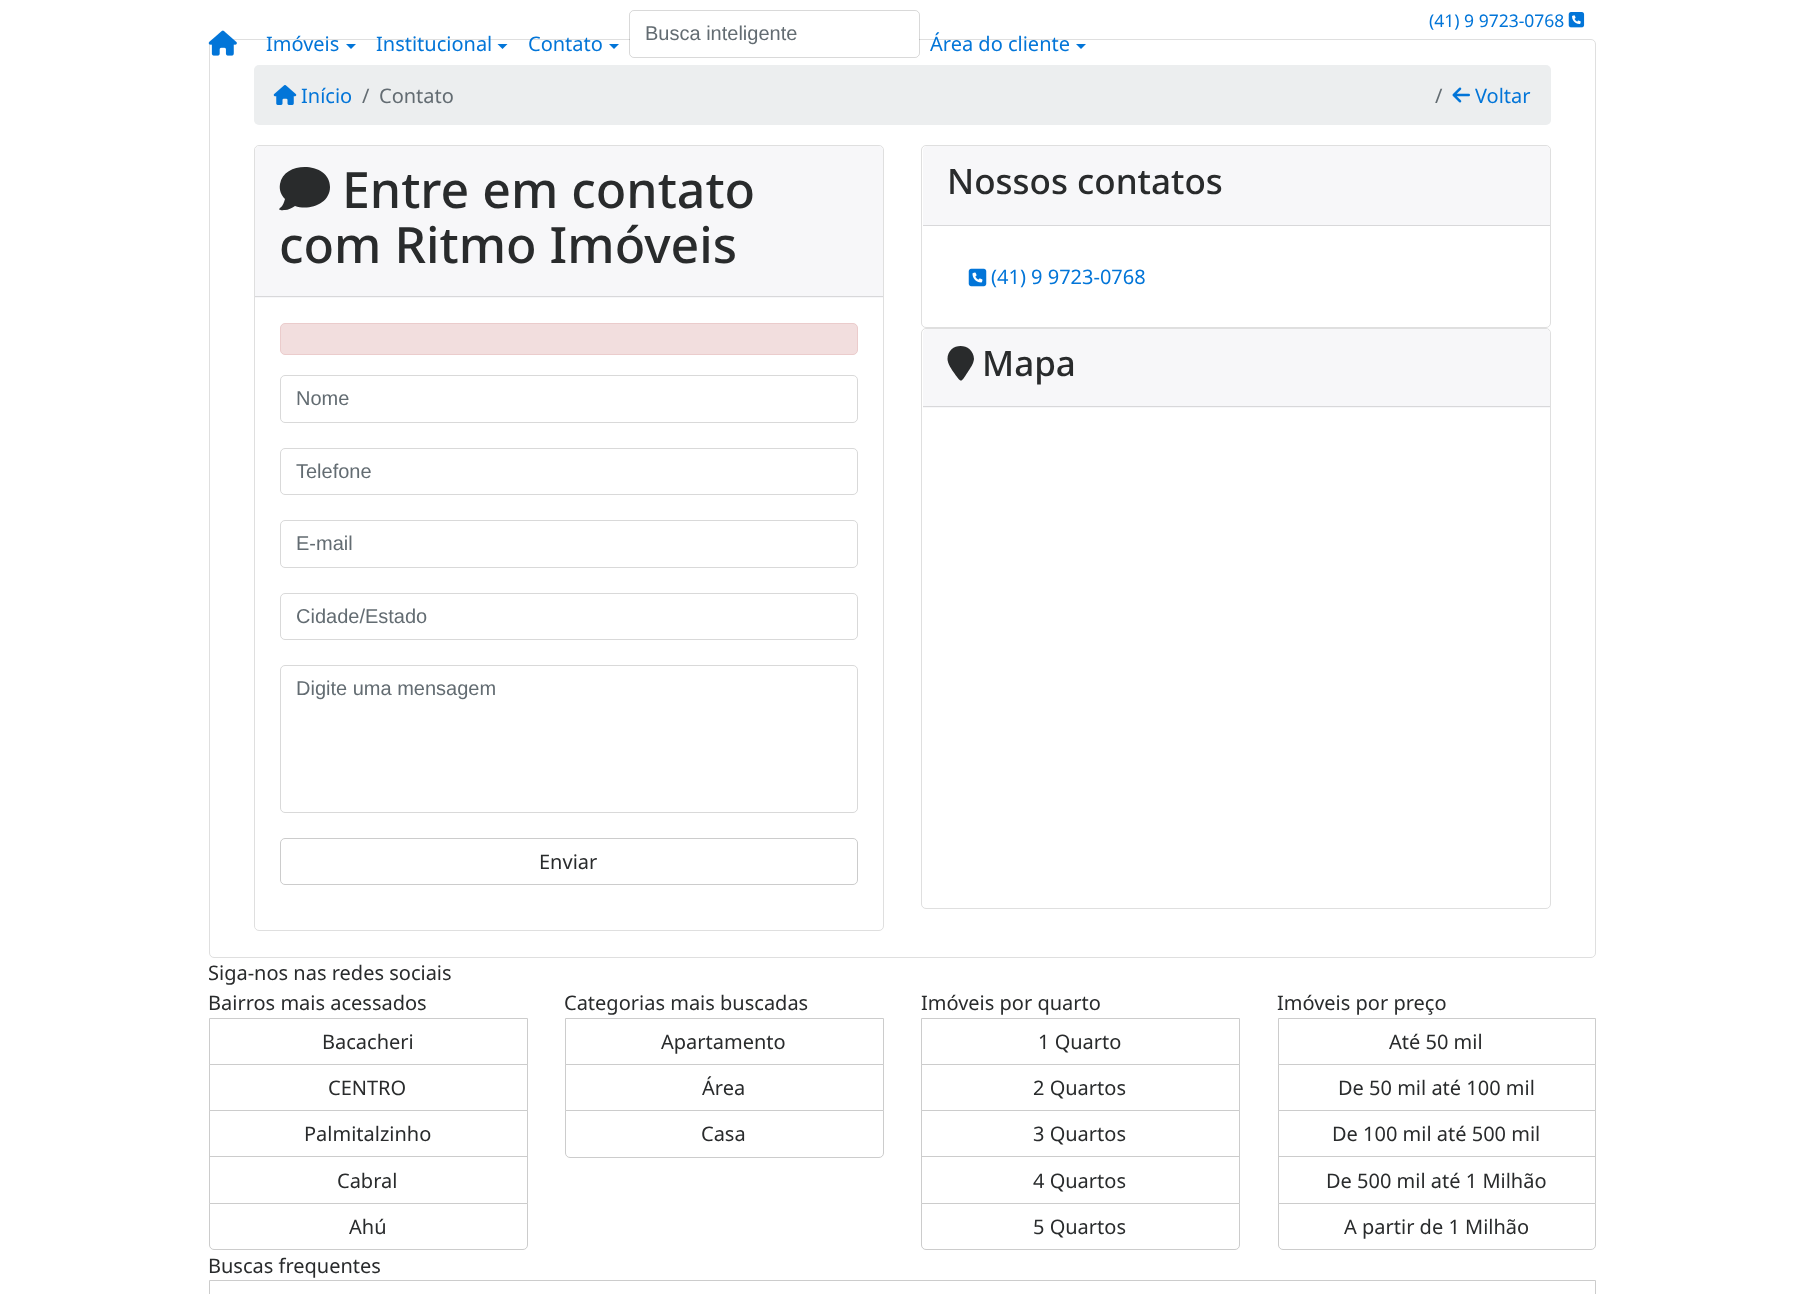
<svg xmlns="http://www.w3.org/2000/svg" width="1803" height="1294">
<style>
.a{font:17.5px Noto Sans;fill:#0275d8}
.b{font:20px Noto Sans;fill:#0275d8}
.c{font:20px Liberation Sans;fill:#636c72}
.d{font:20px Noto Sans;fill:#636c72}
.e{font:500 50px Noto Sans;fill:#292b2c}
.f{font:20px Noto Sans;fill:#292b2c}
.g{font:500 35px Noto Sans;fill:#292b2c}
</style>
<rect width="100%" height="100%" fill="#fff"/>
<image href="1.png" x="1568" y="12" width="17" height="16"/>
<rect fill="none" stroke="#dfdfdf" x="209.5" y="39.5" width="1386" height="918" rx="4.5"/>
<image href="2.png" x="208" y="30" width="29" height="26"/>
<path fill="#0275d8" d="M346 44h10l-5 5z"/>
<path fill="#0275d8" d="M497.5 44h10l-5 5z"/>
<path fill="#0275d8" d="M609 44h10l-5 5z"/>
<rect fill="#fff" x="630" y="11" width="289" height="45" rx="4"/>
<rect fill="none" stroke="#00000026" x="629.5" y="10.5" width="290" height="47" rx="4.5"/>
<path fill="#0275d8" d="M1076 44h10l-5 5z"/>
<rect fill="#eceeef" x="254" y="65" width="1297" height="60" rx="5"/>
<image href="3.png" x="273" y="85" width="24" height="20"/>
<image href="4.png" x="1452" y="87" width="18" height="16"/>
<rect fill="none" stroke="#dfdfdf" x="254.5" y="145.5" width="629" height="785" rx="4.5"/>
<path fill="#f7f7f9" d="M259 146h620c2 0 4 2 4 4v148h-628v-148c0-2 2-4 4-4z"/>
<path fill="#d8d8da" d="M255 296h628v1H255z"/>
<path fill="#292b2c" d="M330 187c0 17-21 24-35 19c-3 2-7 4-10 4c-1 0-8 1-5-2c3-2 4-6 5-9c-4-4-6-9-5-15c4-24 50-22 50 3z"/>
<rect fill="#f2dede" stroke="#ebcccc" x="280.5" y="323.5" width="577" height="31" rx="4.5"/>
<rect fill="none" stroke="#d9d9d9" x="280.5" y="375.5" width="577" height="47" rx="4.5"/>
<rect fill="none" stroke="#d9d9d9" x="280.5" y="448.5" width="577" height="46" rx="4.5"/>
<rect fill="none" stroke="#d9d9d9" x="280.5" y="520.5" width="577" height="47" rx="4.5"/>
<rect fill="none" stroke="#d9d9d9" x="280.5" y="593.5" width="577" height="46" rx="4.5"/>
<rect fill="none" stroke="#d9d9d9" x="280.5" y="665.5" width="577" height="147" rx="4.5"/>
<rect fill="none" stroke="#ccc" x="280.5" y="838.5" width="577" height="46" rx="4.5"/>
<rect fill="none" stroke="#dfdfdf" x="921.5" y="145.5" width="629" height="182" rx="4.5"/>
<path fill="#f7f7f9" d="M927 146h619c2 0 4 2 4 4v76h-627v-76c0-2 2-4 4-4z"/>
<path fill="#d8d8da" d="M923 225h627v1H923z"/>
<image href="5.png" x="968" y="268" width="19" height="19"/>
<rect fill="none" stroke="#dfdfdf" x="921.5" y="328.5" width="629" height="580" rx="4.5"/>
<path fill="#f7f7f9" d="M927 329h619c2 0 4 2 4 4v75h-627v-75c0-2 2-4 4-4z"/>
<path fill="#d8d8da" d="M923 406h627v1H923z"/>
<path fill="#292b2c" d="M974 359c-.5 5-4 9.5-6.5 13.5c-6.5 10-6 11-13 1c-2.5-3.5-7-10-7-14.5c0-17.5 26-17.5 26.5 0z"/>
<path fill="none" stroke="#ccc" d="M209.5 1018.5h318v46H209.5z"/>
<path fill="none" stroke="#ccc" d="M209.5 1064.5h318v46H209.5z"/>
<path fill="none" stroke="#ccc" d="M209.5 1110.5h318v47H209.5z"/>
<path fill="#fff" d="M210 1157h317v1H210z"/>
<path fill="none" stroke="#ccc" d="M209.5 1156.5h318v47H209.5z"/>
<path fill="#fff" stroke="#ccc" d="M209.5 1203.5h318v41.5c0 2.5-2 4.5-4.5 4.5h-309c-2.5 0-4.5-2-4.5-4.5z"/>
<path fill="none" stroke="#ccc" d="M565.5 1018.5h318v46H565.5z"/>
<path fill="none" stroke="#ccc" d="M565.5 1064.5h318v46H565.5z"/>
<path fill="#fff" stroke="#ccc" d="M565.5 1110.5h318v42.5c0 2.5-2 4.5-4.5 4.5h-309c-2.5 0-4.5-2-4.5-4.5z"/>
<path fill="none" stroke="#ccc" d="M921.5 1018.5h318v46H921.5z"/>
<path fill="none" stroke="#ccc" d="M921.5 1064.5h318v46H921.5z"/>
<path fill="none" stroke="#ccc" d="M921.5 1110.5h318v47H921.5z"/>
<path fill="#fff" d="M922 1157h317v1H922z"/>
<path fill="none" stroke="#ccc" d="M921.5 1156.5h318v47H921.5z"/>
<path fill="#fff" stroke="#ccc" d="M921.5 1203.5h318v41.5c0 2.5-2 4.5-4.5 4.5h-309c-2.5 0-4.5-2-4.5-4.5z"/>
<path fill="none" stroke="#ccc" d="M1278.5 1018.5h317v46H1278.5z"/>
<path fill="none" stroke="#ccc" d="M1278.5 1064.5h317v46H1278.5z"/>
<path fill="none" stroke="#ccc" d="M1278.5 1110.5h317v47H1278.5z"/>
<path fill="#fff" d="M1279 1157h316v1H1279z"/>
<path fill="none" stroke="#ccc" d="M1278.5 1156.5h317v47H1278.5z"/>
<path fill="#fff" stroke="#ccc" d="M1278.5 1203.5h317v41.5c0 2.5-2 4.5-4.5 4.5h-308c-2.5 0-4.5-2-4.5-4.5z"/>
<path fill="none" stroke="#ccc" d="M209.5 1280.5h1386v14H209.5z"/>
<text class="a" x="1429" y="27">(41) 9 9723-0768</text>
<text class="b" x="266" y="51">Imóveis</text>
<text class="b" x="376" y="51">Institucional</text>
<text class="b" x="528" y="51">Contato</text>
<text class="c" x="645" y="40">Busca inteligente</text>
<text class="b" x="930" y="51">Área do cliente</text>
<text class="b" x="301" y="103">Início</text>
<text class="d" x="362" y="103">/</text>
<text class="d" x="379" y="103">Contato</text>
<text class="d" x="1435" y="103">/</text>
<text class="b" x="1475" y="103">Voltar</text>
<text class="e" x="342" y="208">Entre em contato</text>
<text class="e" x="279" y="263">com Ritmo Imóveis</text>
<text class="c" x="296" y="405">Nome</text>
<text class="c" x="296" y="478">Telefone</text>
<text class="c" x="296" y="550">E-mail</text>
<text class="c" x="296" y="623">Cidade/Estado</text>
<text class="c" x="296" y="695">Digite uma mensagem</text>
<text class="f" x="539" y="869">Enviar</text>
<text class="g" x="947" y="194">Nossos contatos</text>
<text class="b" x="991" y="284">(41) 9 9723-0768</text>
<text class="g" x="982" y="376">Mapa</text>
<text class="f" x="208" y="980">Siga-nos nas redes sociais</text>
<text class="f" x="208" y="1010">Bairros mais acessados</text>
<text class="f" x="322" y="1049">Bacacheri</text>
<text class="f" x="328" y="1095">CENTRO</text>
<text class="f" x="304" y="1141">Palmitalzinho</text>
<text class="f" x="337" y="1188">Cabral</text>
<text class="f" x="349" y="1234">Ahú</text>
<text class="f" x="564" y="1010">Categorias mais buscadas</text>
<text class="f" x="661" y="1049">Apartamento</text>
<text class="f" x="702" y="1095">Área</text>
<text class="f" x="701" y="1141">Casa</text>
<text class="f" x="921" y="1010">Imóveis por quarto</text>
<text class="f" x="1038" y="1049">1 Quarto</text>
<text class="f" x="1033" y="1095">2 Quartos</text>
<text class="f" x="1033" y="1141">3 Quartos</text>
<text class="f" x="1033" y="1188">4 Quartos</text>
<text class="f" x="1033" y="1234">5 Quartos</text>
<text class="f" x="1277" y="1010">Imóveis por preço</text>
<text class="f" x="1389" y="1049">Até 50 mil</text>
<text class="f" x="1338" y="1095">De 50 mil até 100 mil</text>
<text class="f" x="1332" y="1141">De 100 mil até 500 mil</text>
<text class="f" x="1326" y="1188">De 500 mil até 1 Milhão</text>
<text class="f" x="1344" y="1234">A partir de 1 Milhão</text>
<text class="f" x="208" y="1273">Buscas frequentes</text>
</svg>
